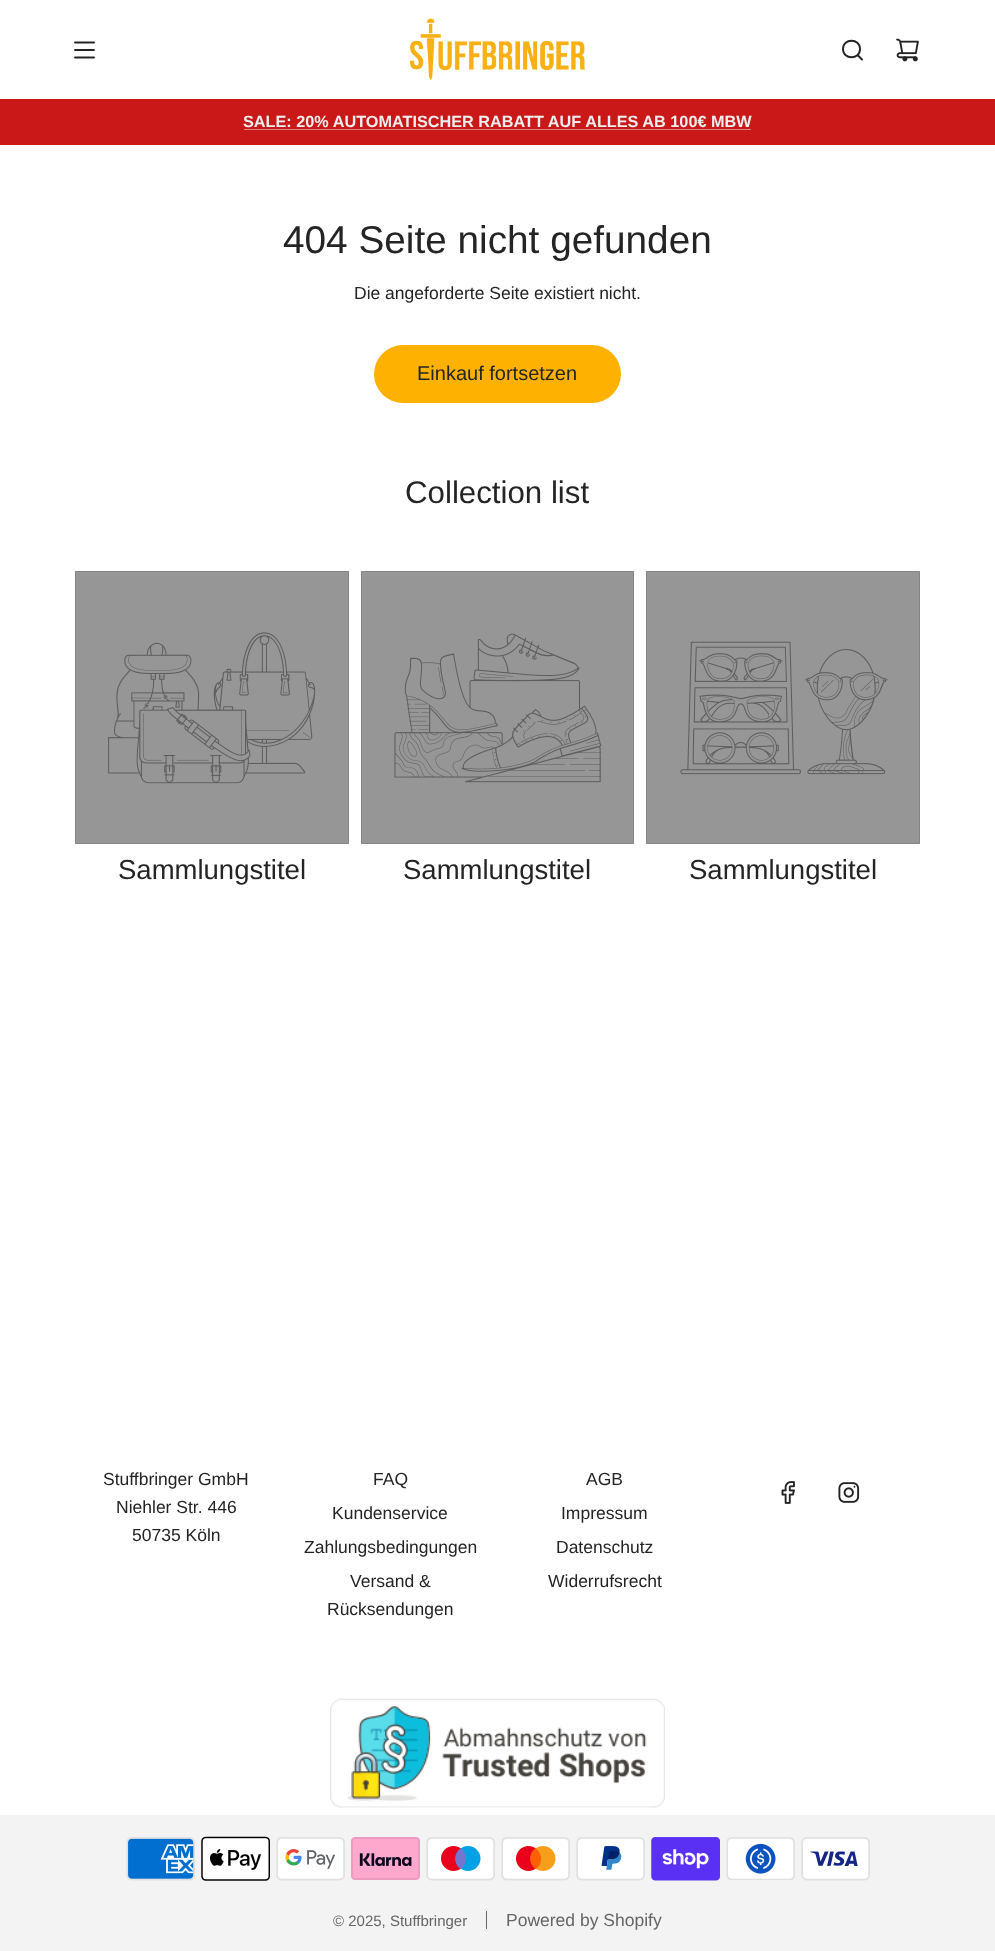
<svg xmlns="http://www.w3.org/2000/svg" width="995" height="1951">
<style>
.a{font:bold 16.25px Liberation Sans;fill:#eee}
.b{font:38.75px Liberation Sans;fill:#242424}
.c{font:17.5px Liberation Sans;fill:#242424}
.d{font:20px Liberation Sans;fill:#242424}
.e{font:31.25px Liberation Sans;fill:#242424}
.f{font:27.5px Liberation Sans;fill:#242424}
.g{font:15px Liberation Sans;fill:#656565}
.h{font:17.5px Liberation Sans;fill:#656565}
</style>
<rect width="100%" height="100%" fill="#fff"/>
<path fill="none" stroke="#242424" stroke-width="1.9" stroke-linecap="round" stroke-linejoin="round" d="M75 42.5h19m-19 7.5h19m-19 7.5h19"/>
<image href="1.png" x="410" y="18" width="175" height="62"/>
<path fill="none" stroke="#242424" stroke-width="1.9" stroke-linecap="round" stroke-linejoin="round" d="M857.5 55l4.5 4.5m-19-10.5c0 11 17 11 17 0c0-11-17-11-17 0z"/>
<image href="2.png" x="896" y="38" width="23" height="24"/>
<path fill="#ca1818" d="M0 99h995v46H0z"/>
<path fill="#dc8383" d="M244 129h507v1H244z"/>
<rect fill="#ffb100" x="374" y="345" width="247" height="58" rx="29"/>
<path fill="#969696" stroke="#858585" d="M75.5 571.5h273v272H75.5z"/>
<image href="3.png" x="108" y="632" width="208" height="152"/>
<path fill="#969696" stroke="#858585" d="M361.5 571.5h272v272H361.5z"/>
<image href="4.png" x="394" y="633" width="208" height="150"/>
<path fill="#969696" stroke="#858585" d="M646.5 571.5h273v272H646.5z"/>
<image href="5.png" x="680" y="641" width="208" height="134"/>
<image href="6.png" x="781" y="1481" width="14" height="23"/>
<image href="7.png" x="838" y="1482" width="22" height="21"/>
<image href="8.png" x="330" y="1698" width="335" height="110"/>
<path fill="#f3f3f3" d="M0 1815h995v136H0z"/>
<image href="9.png" x="126" y="1837" width="69" height="44"/>
<image href="10.png" x="201" y="1836" width="69" height="45"/>
<image href="11.png" x="276" y="1837" width="69" height="44"/>
<image href="12.png" x="351" y="1837" width="69" height="43"/>
<image href="13.png" x="426" y="1837" width="69" height="44"/>
<image href="14.png" x="501" y="1837" width="69" height="44"/>
<image href="15.png" x="576" y="1837" width="69" height="44"/>
<image href="16.png" x="651" y="1837" width="69" height="44"/>
<image href="17.png" x="726" y="1837" width="69" height="43"/>
<image href="18.png" x="801" y="1837" width="69" height="44"/>
<path fill="#656565" d="M486 1911h1v18H486z"/>
<text class="a" x="243" y="127">SALE: 20% AUTOMATISCHER RABATT AUF ALLES AB 100€ MBW</text>
<text class="b" x="283" y="253">404 Seite nicht gefunden</text>
<text class="c" x="354" y="299">Die angeforderte Seite existiert nicht.</text>
<text class="d" x="417" y="380">Einkauf fortsetzen</text>
<text class="e" x="405" y="503">Collection list</text>
<text class="f" x="118" y="879">Sammlungstitel</text>
<text class="f" x="403" y="879">Sammlungstitel</text>
<text class="f" x="689" y="879">Sammlungstitel</text>
<text class="c" x="103" y="1485">Stuffbringer GmbH</text>
<text class="c" x="116" y="1513">Niehler Str. 446</text>
<text class="c" x="132" y="1541">50735 Köln</text>
<text class="c" x="373" y="1485">FAQ</text>
<text class="c" x="332" y="1519">Kundenservice</text>
<text class="c" x="304" y="1553">Zahlungsbedingungen</text>
<text class="c" x="350" y="1587">Versand &amp;</text>
<text class="c" x="327" y="1615">Rücksendungen</text>
<text class="c" x="586" y="1485">AGB</text>
<text class="c" x="561" y="1519">Impressum</text>
<text class="c" x="556" y="1553">Datenschutz</text>
<text class="c" x="548" y="1587">Widerrufsrecht</text>
<text class="g" x="333" y="1926">© 2025, Stuffbringer</text>
<text class="h" x="506" y="1926">Powered by Shopify</text>
</svg>
